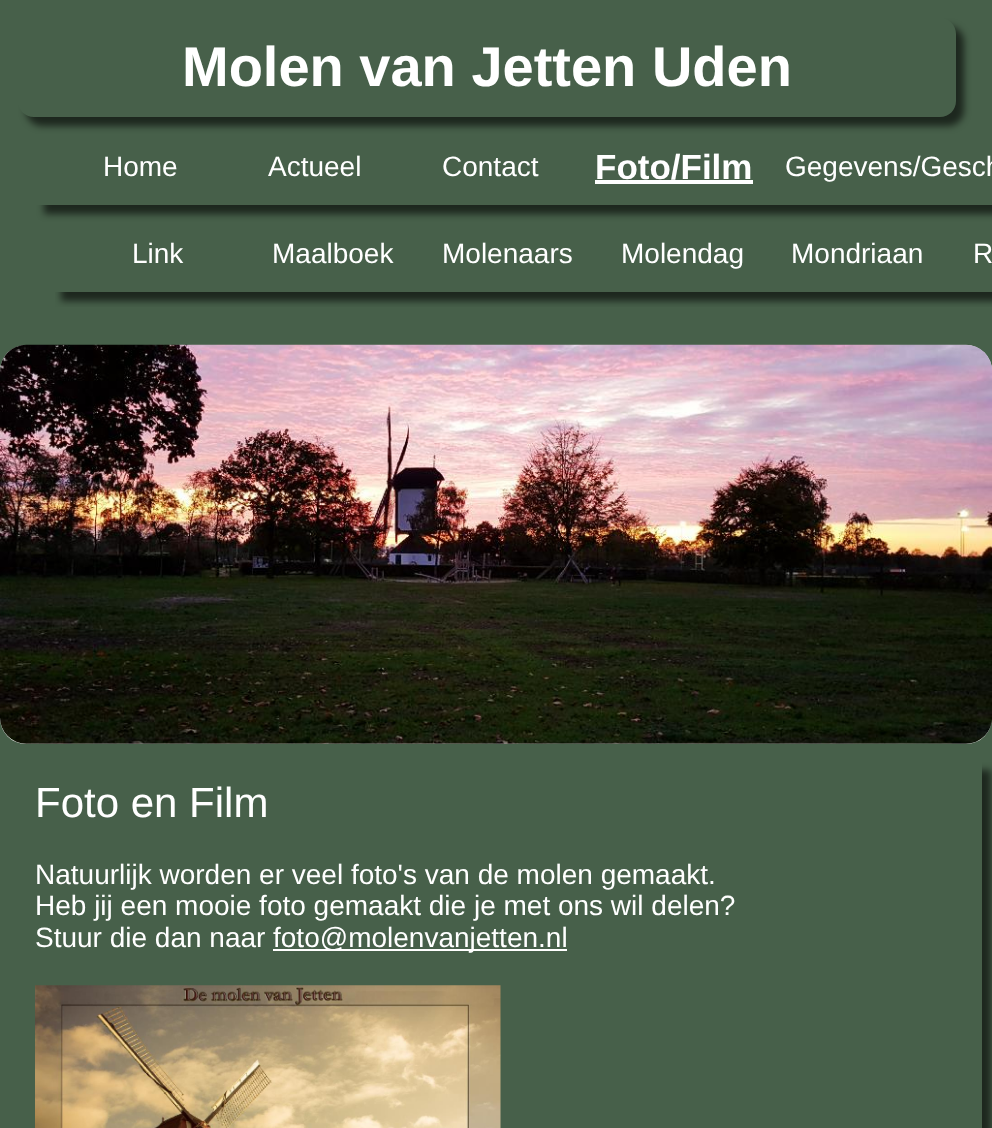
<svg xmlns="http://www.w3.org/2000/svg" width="992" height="1128">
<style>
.a{font:bold 56px Liberation Sans;fill:#fff}
.b{font:28px Liberation Sans;fill:#fff}
.c{font:bold 35px Liberation Sans;fill:#fff}
.d{font:42px Liberation Sans;fill:#fff}
</style>
<defs>
<clipPath id="clip1"><path d="M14 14h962v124h-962zm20 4h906c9 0 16 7 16 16v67c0 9-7 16-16 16h-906c-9 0-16-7-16-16v-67c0-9 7-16 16-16z" clip-rule="evenodd"/></clipPath>
<clipPath id="clip2"><path d="M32 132h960v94h-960zm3 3h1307v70h-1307z" clip-rule="evenodd"/></clipPath>
<clipPath id="clip3"><path d="M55 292h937v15H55z"/></clipPath>
<clipPath id="clip4"><path d="M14 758h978v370h-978zm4 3h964v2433h-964z" clip-rule="evenodd"/></clipPath>
</defs>
<rect width="100%" height="100%" fill="#47604a"/>
<g clip-path="url(#clip1)">
<rect fill="#00000096" filter="blur(3.5px)" x="26" y="26" width="938" height="100" rx="16"/>
</g>
<g clip-path="url(#clip2)">
<path fill="#00000096" filter="blur(3.5px)" d="M44 144h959v70H44z"/>
</g>
<path fill="#fff" d="M595 180h158v4H595z"/>
<g clip-path="url(#clip3)">
<path fill="#00000096" filter="blur(3.5px)" d="M61 231h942v70H61z"/>
</g>
<rect fill="#fff" y="345" width="992" height="399" rx="26"/>
<image href="1.png" x="0" y="344" width="992" height="400"/>
<g clip-path="url(#clip4)">
<path fill="#00000096" filter="blur(3.5px)" d="M26 770h965v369H26z"/>
</g>
<path fill="#fff" d="M273 949h294v2H273z"/>
<image href="2.png" x="35" y="985" width="466" height="143"/>
<text class="a" x="182" y="86">Molen van Jetten Uden</text>
<text class="b" x="103" y="176">Home</text>
<text class="b" x="268" y="176">Actueel</text>
<text class="b" x="442" y="176">Contact</text>
<text class="c" x="595" y="179">Foto/Film</text>
<text class="b" x="785" y="176">Gegevens/Gesch</text>
<text class="b" x="132" y="263">Link</text>
<text class="b" x="272" y="263">Maalboek</text>
<text class="b" x="442" y="263">Molenaars</text>
<text class="b" x="621" y="263">Molendag</text>
<text class="b" x="791" y="263">Mondriaan</text>
<text class="b" x="973" y="263">R</text>
<text class="d" x="35" y="817">Foto en Film</text>
<text class="b" x="35" y="884">Natuurlijk worden er veel foto's van de molen gemaakt.</text>
<text class="b" x="35" y="915">Heb jij een mooie foto gemaakt die je met ons wil delen?</text>
<text class="b" x="35" y="947">Stuur die dan naar</text>
<text class="b" x="273" y="947">foto@molenvanjetten.nl</text>
</svg>
